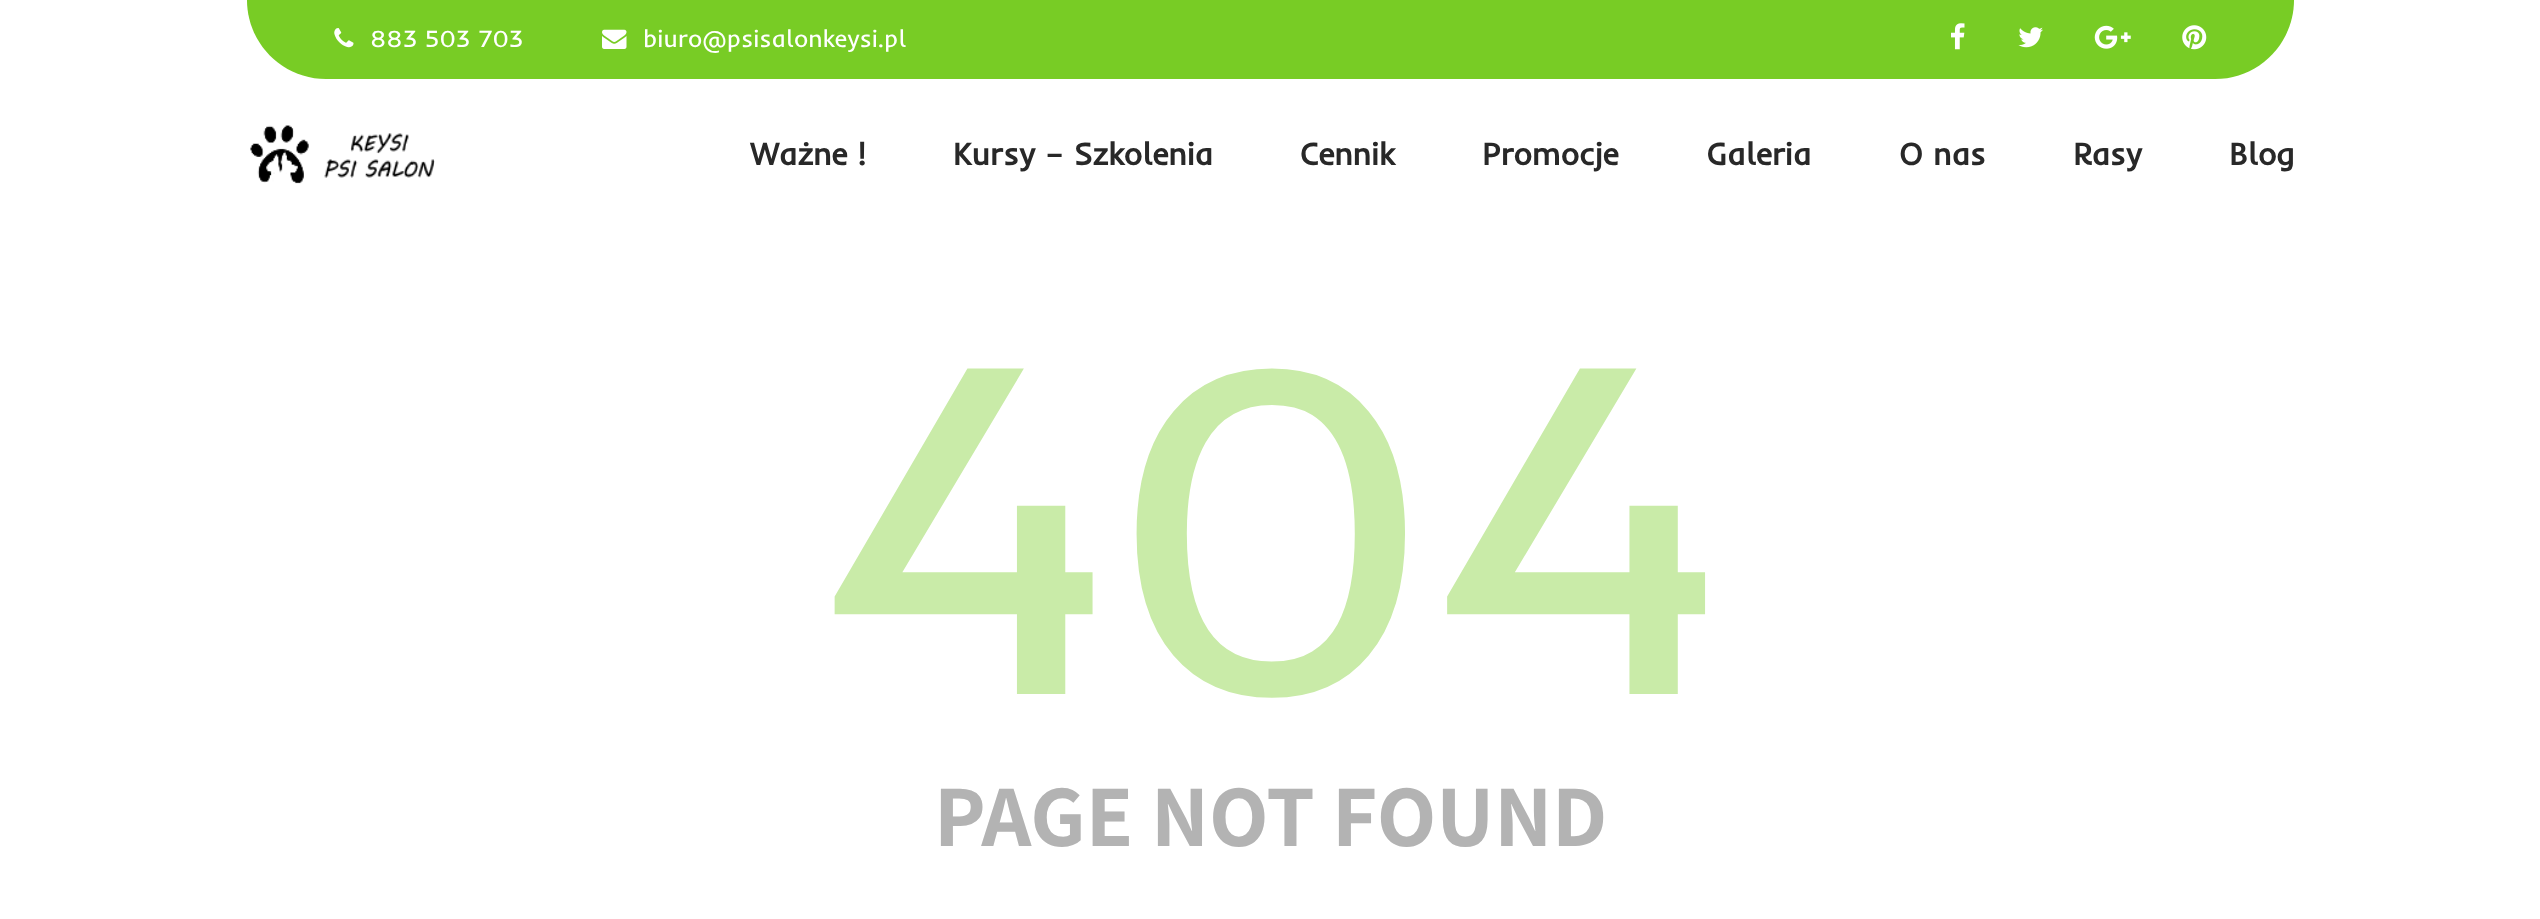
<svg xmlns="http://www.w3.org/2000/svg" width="2540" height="919">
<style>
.a{font:24.5px Inder;fill:#fff}
.b{font:bold 31.5px Inder;fill:#282828}
.c{font:490px Inder;fill:#c9eba8}
.d{font:bold 87.5px Assistant;fill:#b3b3b3}
</style>
<rect width="100%" height="100%" fill="#fff"/>
<path fill="#78cc25" d="M247 0h2047c0 43.5-35.5 79-79 79h-1889c-43.5 0-79-35.5-79-79z"/>
<image href="1.png" x="334" y="28" width="20" height="20"/>
<image href="2.png" x="602" y="29" width="25" height="20"/>
<image href="3.png" x="1951" y="23" width="14" height="27"/>
<image href="4.png" x="2018" y="27" width="25" height="21"/>
<image href="5.png" x="2094" y="25" width="37" height="24"/>
<image href="6.png" x="2182" y="25" width="25" height="25"/>
<image href="7.png" x="250" y="125" width="185" height="59"/>
<text class="a" x="370" y="47">883 503 703</text>
<text class="a" x="643" y="47">biuro@psisalonkeysi.pl</text>
<text class="b" x="750" y="165">Ważne !</text>
<text class="b" x="953" y="165">Kursy – Szkolenia</text>
<text class="b" x="1300" y="165">Cennik</text>
<text class="b" x="1482" y="165">Promocje</text>
<text class="b" x="1706" y="165">Galeria</text>
<text class="b" x="1899" y="165">O nas</text>
<text class="b" x="2073" y="165">Rasy</text>
<text class="b" x="2229" y="165">Blog</text>
<text class="c" x="821" y="694">404</text>
<text class="d" x="934" y="846">PAGE NOT FOUND</text>
</svg>
